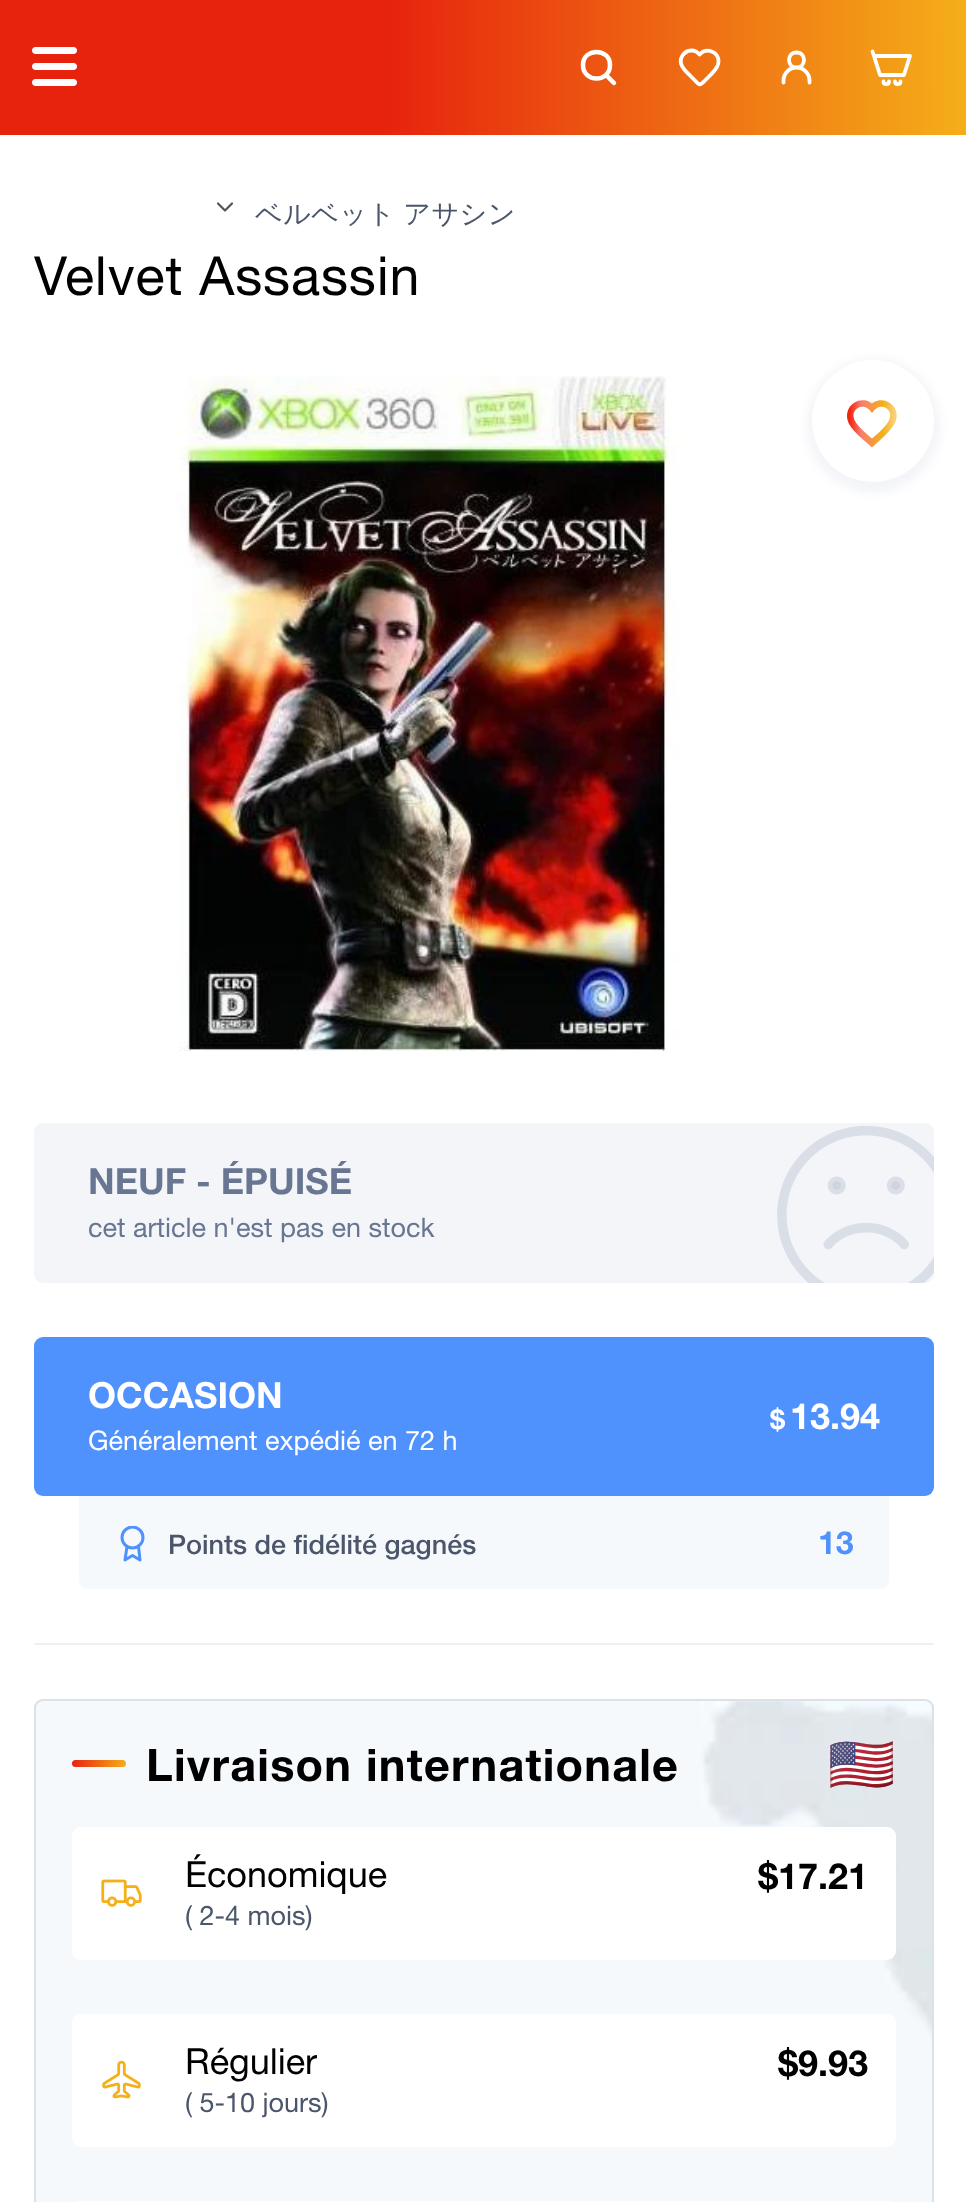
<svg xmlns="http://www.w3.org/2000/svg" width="966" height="2202">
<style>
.a{font:500 27px WenQuanYi Zen Hei;letter-spacing:0.5px;fill:#4b566b}
.b{font:54px Helvetica Neue;letter-spacing:0.9px;fill:#000}
.c{font:bold 36px Helvetica Neue;fill:#687692}
.d{font:27px Helvetica Neue;fill:#687692}
.e{font:bold 36px Helvetica Neue;fill:#fff}
.f{font:27px Helvetica Neue;fill:#fff}
.g{font:bold 27px Helvetica Neue;fill:#fff}
.h{font:500 27px Helvetica Neue;fill:#4b566b}
.i{font:bold 32px Helvetica Neue;fill:#5092fd}
.j{font:bold 45px Helvetica Neue;letter-spacing:1.25px;fill:#000}
.k{font:54px Noto Color Emoji;fill:#545454}
.l{font:36px Helvetica Neue;fill:#000}
.m{font:27px Helvetica Neue;fill:#4b566b}
.n{font:bold 36px Helvetica Neue;fill:#000}
</style>
<defs>
<linearGradient id="g1" gradientUnits="userSpaceOnUse" x1="0" y1="68" x2="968" y2="67"><stop offset="0.4" stop-color="#e7230d"/><stop offset="1" stop-color="#f5af19"/></linearGradient>
<linearGradient id="g2" gradientUnits="userSpaceOnUse" x1="850" y1="403" x2="894" y2="403"><stop offset="0" stop-color="#f12711"/><stop offset="0.25" stop-color="#f77d70"/><stop offset="0.75" stop-color="#f5af19"/><stop offset="1" stop-color="#f9cf75"/></linearGradient>
<clipPath id="clip1"><path d="M115 1526h36v36H115z"/></clipPath>
<linearGradient id="g3" gradientUnits="userSpaceOnUse" x1="72" y1="1763" x2="126" y2="1763"><stop offset="0" stop-color="#e7230d"/><stop offset="1" stop-color="#f5af19"/></linearGradient>
</defs>
<rect width="100%" height="100%" fill="#fff"/>
<path fill="url(#g1)" d="M0 0h966v135H0z"/>
<path fill="#fff" d="M35.5 47h34.5v7h-34.5c-2 0-3.5-1.5-3.5-3.5c0-2 1.5-3.5 3.5-3.5z"/>
<path fill="#fff" d="M38 47h35.5c2 0 3.5 1.5 3.5 3.5c0 2-1.5 3.5-3.5 3.5h-35.5z"/>
<path fill="#fff" d="M35.5 63h34.5v7h-34.5c-2 0-3.5-1.5-3.5-3.5c0-2 1.5-3.5 3.5-3.5z"/>
<path fill="#fff" d="M38 63h35.5c2 0 3.5 1.5 3.5 3.5c0 2-1.5 3.5-3.5 3.5h-35.5z"/>
<path fill="#fff" d="M35.5 79h34.5v7h-34.5c-2 0-3.5-1.5-3.5-3.5c0-2 1.5-3.5 3.5-3.5z"/>
<path fill="#fff" d="M38 79h35.5c2 0 3.5 1.5 3.5 3.5c0 2-1.5 3.5-3.5 3.5h-35.5z"/>
<path fill="none" stroke="#fff" stroke-width="4.5" stroke-linecap="round" stroke-linejoin="round" d="M606.5 75.5l7.5 7.5m-31-18c0 18 27 18 27 0c0-17.5-27-17.5-27 0z"/>
<path fill="none" stroke="#fff" stroke-width="3.8" stroke-linejoin="round" d="M718.5 61.5c0 6-4.5 9.5-8 13.5l-7 7c-4 3.5-4.5 3-8-1l-4.5-4.5c-5.5-5.5-14-12-8.5-21c4.5-6.5 12.5-6.5 17-1c7-7.5 19-3 19 7z"/>
<path fill="none" stroke="#fff" stroke-width="3.8" stroke-linecap="round" stroke-linejoin="round" d="M783.5 82.5v-2c0-7 6-13 13-13c7 0 13 6 13 13v2m-13-15c10 0 10-15 0-15c-10 0-10 15 0 15z"/>
<path fill="none" stroke="#fff" stroke-width="3.8" stroke-linecap="round" stroke-linejoin="round" d="M874 56h36l-6 19h-24zm0 0l-1.5-4.5m16.5 30c0 3.5-5.5 3.5-5.5 0m17 0c0 3.5-5.5 3.5-5.5 0"/>
<path fill="none" stroke="#545454" stroke-width="2.2" stroke-linecap="round" stroke-linejoin="round" d="M218 203.5l7 7l7-7"/>
<image href="1.png" x="175" y="376" width="504" height="675"/>
<rect fill="#c6cede33" filter="blur(4.5px)" x="806" y="358" width="135" height="135" rx="67.5"/>
<circle fill="#fff" cx="873" cy="421" r="61"/>
<path fill="none" stroke="url(#g2)" stroke-width="6.5" d="M872 443c-7-6.5-16.5-13-20.5-21.5c-6-14 11-24.5 20.5-13.5c9-11 26.5-.5 20 13.5c-4 8.5-13 15-20 21.5z"/>
<rect fill="#f3f5f9" x="34" y="1123" width="900" height="160" rx="9"/>
<image href="2.png" x="777" y="1126" width="157" height="157"/>
<rect fill="#5092fd" x="34" y="1337" width="900" height="159" rx="9"/>
<path fill="#f6f9fc" d="M79 1496h810v84c0 5-4 9-9 9h-792c-5 0-9-4-9-9z"/>
<g clip-path="url(#clip1)">
<circle fill="none" stroke="#5092fd" stroke-width="3" cx="132.5" cy="1537.5" r="10.5"/>
</g>
<path fill="none" stroke="#5092fd" stroke-width="3" stroke-linecap="round" stroke-linejoin="round" d="M127 1546.5l-2 13.5l7.5-4.5l7.5 4.5l-1.5-13.5"/>
<path fill="#f0f0f0" d="M34 1643h900v2H34z"/>
<rect fill="#f6f9fc" x="34" y="1699" width="900" height="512" rx="9"/>
<image href="3.png" x="701" y="1700" width="233" height="342"/>
<rect fill="none" stroke="#dae1e7" stroke-width="2" x="35" y="1700" width="898" height="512" rx="8"/>
<rect fill="url(#g3)" x="72" y="1760" width="54" height="7" rx="3.5"/>
<rect fill="#fff" x="72" y="1827" width="824" height="133" rx="9"/>
<image href="4.png" x="101" y="1879" width="41" height="28"/>
<rect fill="#fff" x="72" y="2014" width="824" height="133" rx="9"/>
<image href="5.png" x="102" y="2060" width="39" height="39"/>
<rect fill="#fff" x="72" y="2201" width="824" height="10" rx="9"/>
<text class="a" x="255" y="223" word-spacing="-1">ベルベット アサシン</text>
<text class="b" x="34" y="295">Velvet Assassin</text>
<text class="c" x="88" y="1194">NEUF - ÉPUISÉ</text>
<text class="d" x="88" y="1237">cet article n'est pas en stock</text>
<text class="e" x="88" y="1408">OCCASION</text>
<text class="f" x="88" y="1450">Généralement expédié en 72 h</text>
<text class="g" x="770" y="1429">$</text>
<text class="e" x="790" y="1429">13.94</text>
<text class="h" x="168" y="1554">Points de fidélité gagnés</text>
<text class="i" x="818" y="1554">13</text>
<text class="j" x="146" y="1781">Livraison internationale</text>
<text class="k" x="828" y="1783">🇺🇸</text>
<text class="l" x="185" y="1887">Économique</text>
<text class="m" x="185" y="1925">( 2-4 mois)</text>
<text class="n" x="758" y="1889">$17.21</text>
<text class="l" x="185" y="2074">Régulier</text>
<text class="m" x="185" y="2112">( 5-10 jours)</text>
<text class="n" x="778" y="2076">$9.93</text>
</svg>
